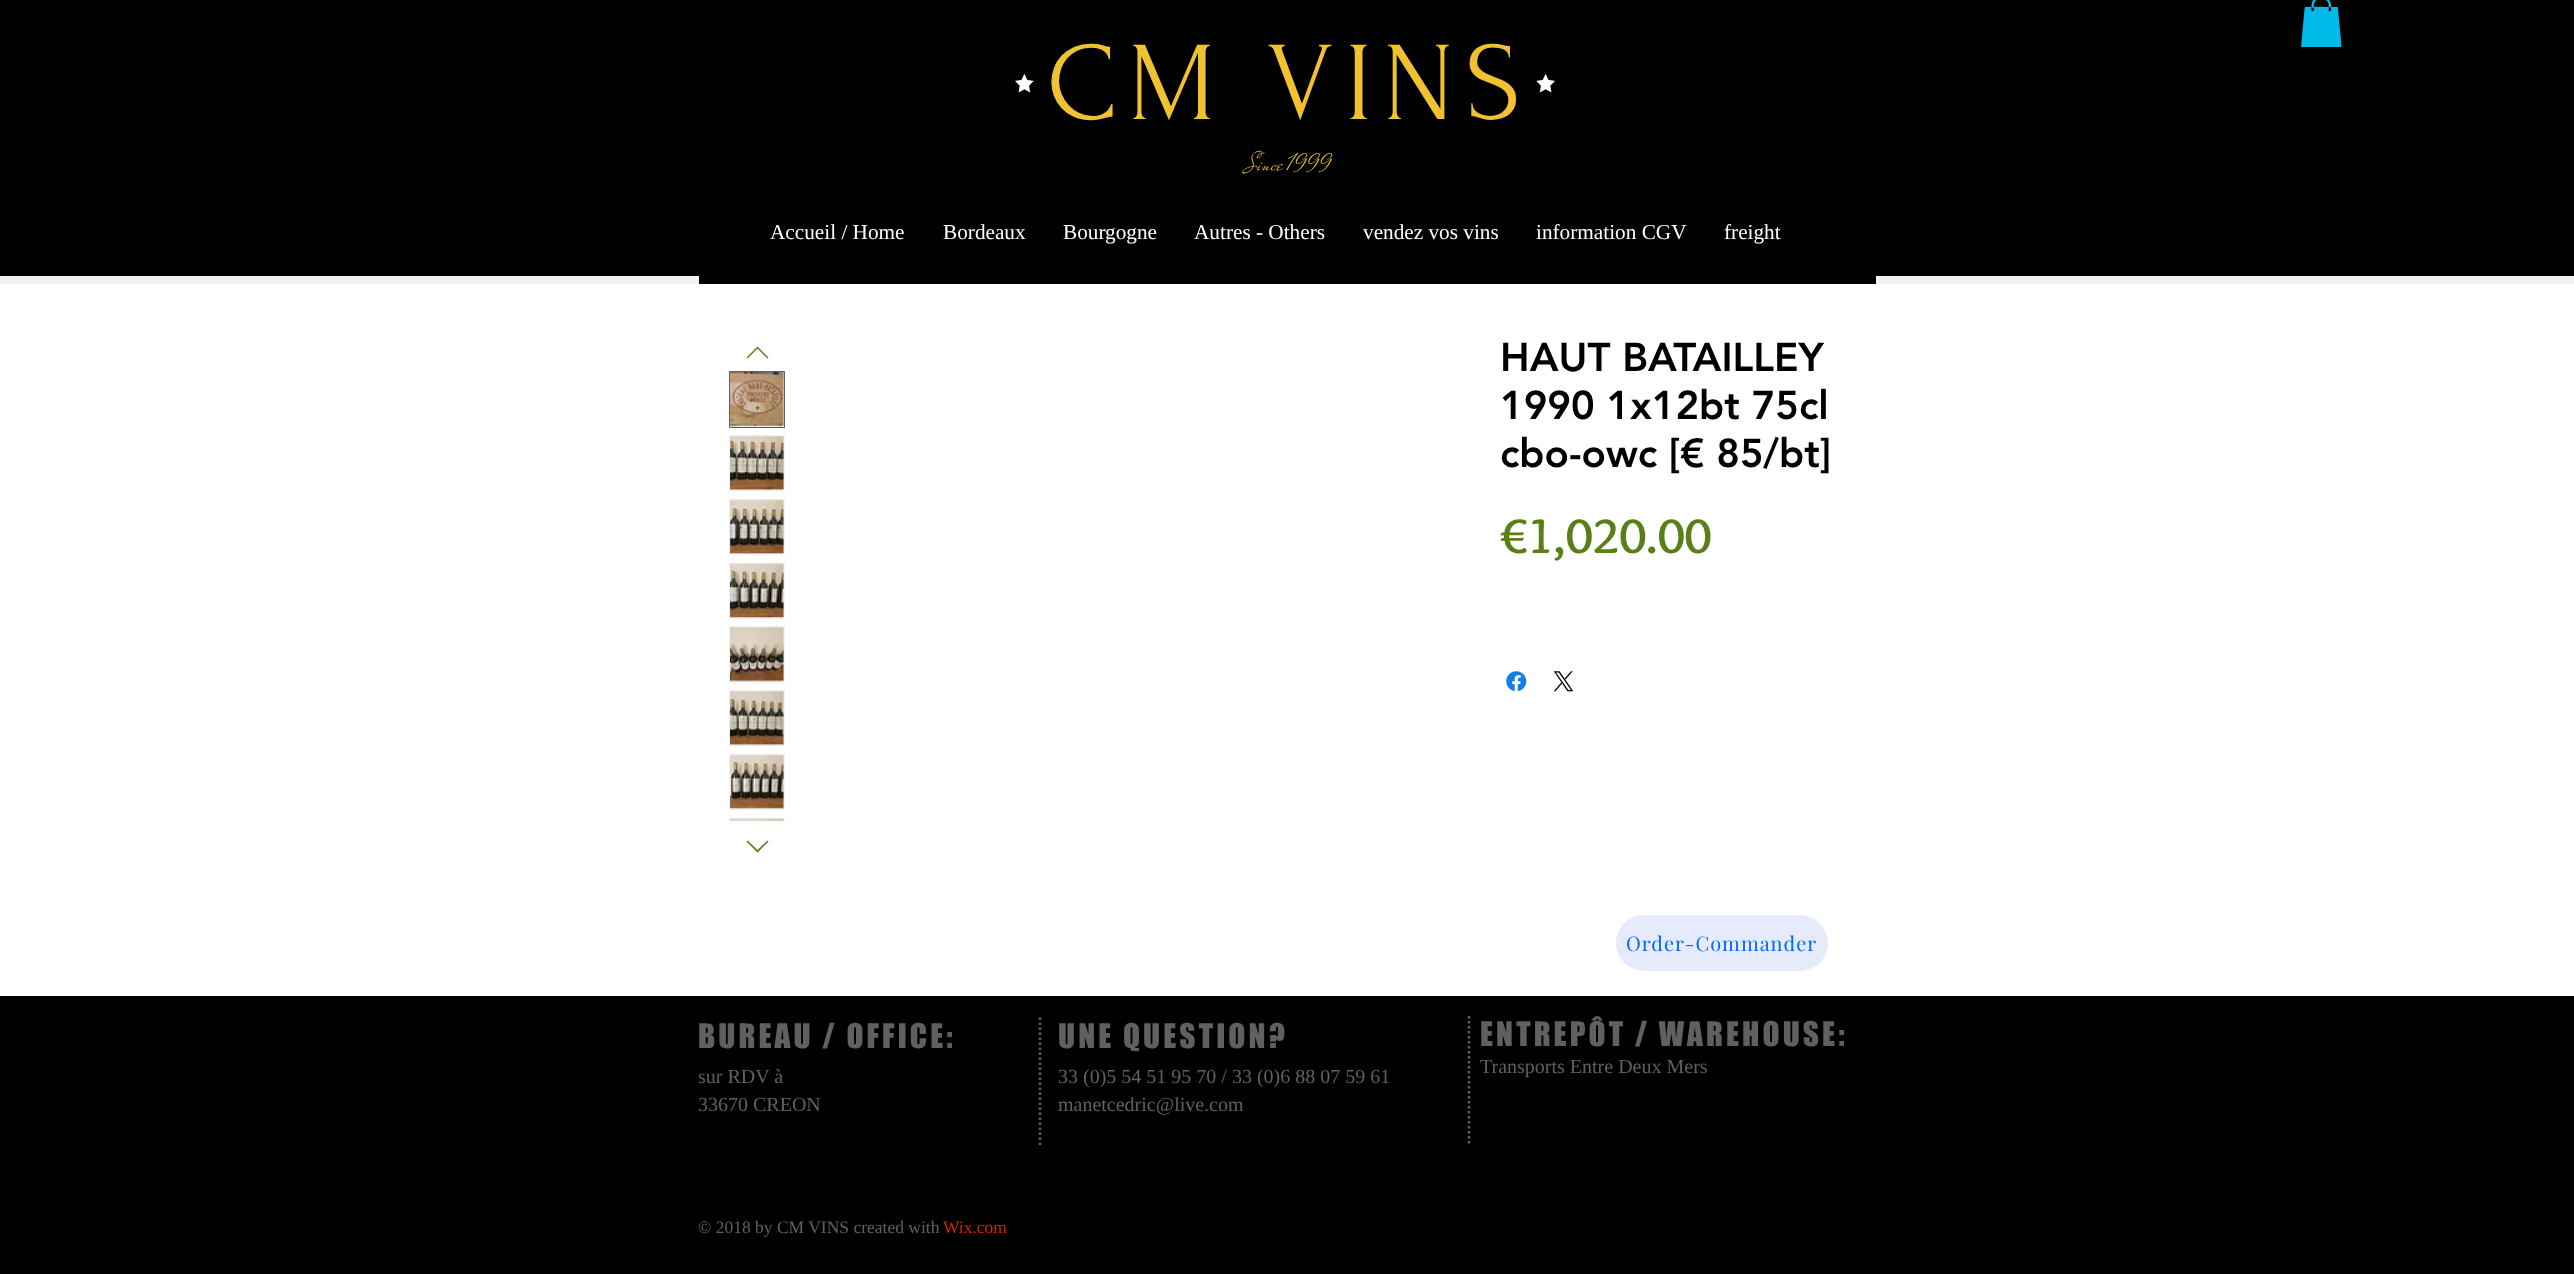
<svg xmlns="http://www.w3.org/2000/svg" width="2574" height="1274">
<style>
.a{font:112.5px Forum;letter-spacing:11.25px;fill:#f0c131}
.b{font:25px Mr De Haviland;fill:#f0c131}
.c{font:21.25px Liberation Serif;fill:#fff}
.d{font:900 40px 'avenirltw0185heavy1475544';fill:#000}
.e{font:bold 50px Overlock;fill:#5b7f18}
.f{font:20px Playfair Display;letter-spacing:1px;fill:#0069ff}
.g{font:31.25px 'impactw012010';letter-spacing:3.1px;fill:#606060}
.h{font:20px Liberation Serif;fill:#606060}
.i{font:17.5px Liberation Serif;fill:#606060}
.j{font:17.5px Liberation Serif;fill:#d32300}
</style>
<rect width="100%" height="100%" fill="#f2f2f2"/>
<path fill="#000" d="M0 0h2574v276H0z"/>
<image href="1.png" x="2301" y="0" width="41" height="47"/>
<image href="2.png" x="1015" y="73" width="19" height="20"/>
<image href="3.png" x="1536" y="73" width="19" height="20"/>
<path fill="#000" d="M699 276h1177v8H699z"/>
<path fill="#fff" d="M0 284h2574v712H0z"/>
<path fill="#5b7f18" fill-rule="evenodd" d="M757.5 346.5l11 11l-1 1l-10-10l-10 10l-1-1z"/>
<path fill="#f2f2f2" stroke="#606060" d="M729.5 371.5h55v56H729.5z"/>
<image href="4.png" x="730" y="372" width="54" height="55"/>
<path fill="#f2f2f2" d="M729 435h56v56H729z"/>
<image href="5.png" x="730" y="435" width="54" height="56"/>
<path fill="#f2f2f2" d="M729 499h56v56H729z"/>
<image href="6.png" x="730" y="499" width="54" height="55"/>
<path fill="#f2f2f2" d="M729 563h56v56H729z"/>
<image href="7.png" x="730" y="563" width="54" height="55"/>
<path fill="#f2f2f2" d="M729 626h56v57H729z"/>
<image href="8.png" x="730" y="627" width="54" height="55"/>
<path fill="#f2f2f2" d="M729 690h56v56H729z"/>
<image href="9.png" x="730" y="691" width="54" height="55"/>
<path fill="#f2f2f2" d="M729 754h56v56H729z"/>
<image href="10.png" x="730" y="754" width="54" height="55"/>
<path fill="#f2f2f2" d="M729 818h56v3H729z"/>
<image href="11.png" x="730" y="818" width="54" height="3"/>
<path fill="#5b7f18" fill-rule="evenodd" d="M767.5 840.5l1 1l-11 11l-11-11l1-1l10 9.5z"/>
<image href="12.png" x="1506" y="671" width="21" height="21"/>
<image href="13.png" x="1553" y="671" width="21" height="21"/>
<rect fill="#e5ebfa" x="1616" y="915" width="212" height="56" rx="28"/>
<path fill="#000" d="M0 996h2574v278H0z"/>
<path fill="none" stroke="#606060" stroke-width="2.5" stroke-dasharray="2.5 2.5" d="M1040 1017.5v130"/>
<path fill="none" stroke="#606060" stroke-width="2.5" stroke-dasharray="2.5 2.5" d="M1469 1016v130"/>
<text class="a" x="1047" y="119">CM VINS</text>
<text class="b" x="1246" y="170">Since 1999</text>
<text class="c" x="770" y="239">Accueil / Home</text>
<text class="c" x="943" y="239">Bordeaux</text>
<text class="c" x="1063" y="239">Bourgogne</text>
<text class="c" x="1194" y="239">Autres - Others</text>
<text class="c" x="1363" y="239">vendez vos vins</text>
<text class="c" x="1536" y="239">information CGV</text>
<text class="c" x="1724" y="239">freight</text>
<text class="d" x="1500" y="371">HAUT BATAILLEY</text>
<text class="d" x="1500" y="419">1990 1x12bt 75cl</text>
<text class="d" x="1500" y="467">cbo-owc [€ 85/bt]</text>
<text class="e" x="1500" y="553">€1,020.00</text>
<text class="f" x="1626" y="951">Order-Commander</text>
<text class="g" x="698" y="1048">BUREAU / OFFICE:</text>
<text class="h" x="698" y="1083">sur RDV à</text>
<text class="h" x="698" y="1111">33670 CREON</text>
<text class="g" x="1058" y="1048">UNE QUESTION?</text>
<text class="h" x="1058" y="1083">33 (0)5 54 51 95 70 / 33 (0)6 88 07 59 61</text>
<text class="h" x="1058" y="1111">manetcedric@live.com</text>
<text class="g" x="1480" y="1046">ENTREPÔT / WAREHOUSE:</text>
<text class="h" x="1480" y="1073">Transports Entre Deux Mers</text>
<text class="i" x="698" y="1233">© 2018 by CM VINS created with</text>
<text class="j" x="943" y="1233">Wix.com</text>
</svg>
